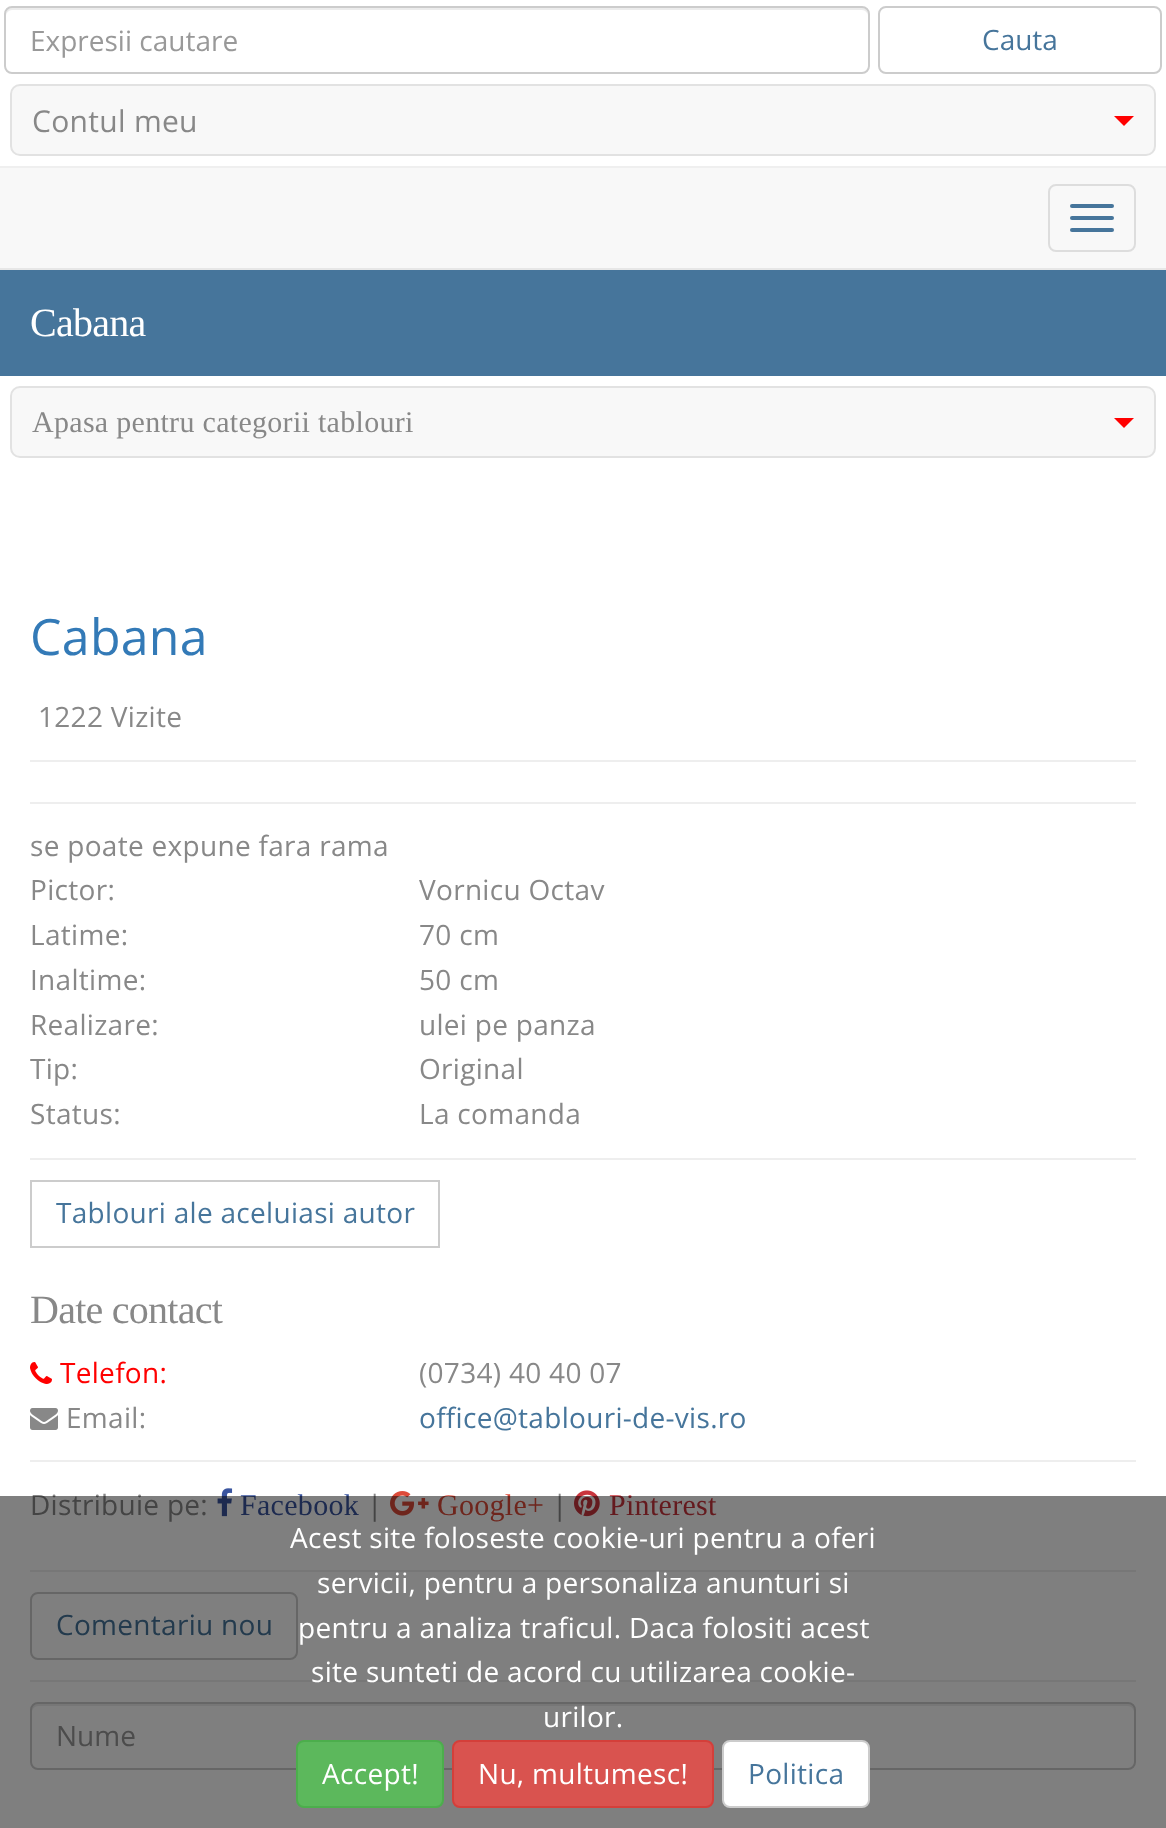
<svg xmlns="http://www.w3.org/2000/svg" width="1166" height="1828">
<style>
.a{font:28px Open Sans;fill:#999}
.b{font:28px Open Sans;fill:#46759b}
.c{font:30px Open Sans;letter-spacing:0.3px;fill:#888}
.d{font:40px Liberation Serif;letter-spacing:-0.75px;fill:#fff}
.e{font:30px Liberation Serif;letter-spacing:0.3px;fill:#888}
.f{font:50px Open Sans;letter-spacing:0.3px;fill:#337ab7}
.g{font:28px Open Sans;letter-spacing:0.3px;fill:#888}
.h{font:28px Open Sans;letter-spacing:0.3px;fill:#46759b}
.i{font:40px Liberation Serif;letter-spacing:-0.75px;fill:#888}
.j{font:28px Open Sans;letter-spacing:0.3px;fill:#f00}
.k{font:30px Liberation Serif;letter-spacing:0.3px;fill:#3a559f}
.l{font:30px Liberation Serif;letter-spacing:0.3px;fill:#dd4b39}
.m{font:30px Liberation Serif;letter-spacing:0.3px;fill:#c9353d}
.n{font:28px Open Sans;letter-spacing:0.3px;fill:#fff}
</style>
<rect width="100%" height="100%" fill="#fff"/>
<path fill="#efefef" d="M0 166h1166v2H0z"/>
<path fill="#ececec" d="M12 10h850c3 0 6 3 6 6c0-4-1-8-6-8h-850c-5 0-6 4-6 8c0-3 3-6 6-6z"/>
<rect fill="none" stroke="#ccc" stroke-width="2" x="5" y="7" width="864" height="66" rx="7"/>
<rect fill="none" stroke="#ccc" stroke-width="2" x="879" y="7" width="282" height="66" rx="7"/>
<rect fill="#f8f8f8" stroke="#e2e2e2" stroke-width="2" x="11" y="85" width="1144" height="70" rx="9"/>
<path fill="#f00" d="M1114 116h20l-10 10z"/>
<path fill="#f8f8f8" d="M0 168h1166v100H0z"/>
<path fill="#e7e7e7" d="M0 268h1166v2H0z"/>
<rect fill="none" stroke="#ddd" stroke-width="2" x="1049" y="185" width="86" height="66" rx="7"/>
<rect fill="#46759b" x="1070" y="204" width="44" height="4" rx="2"/>
<rect fill="#46759b" x="1070" y="216" width="44" height="4" rx="2"/>
<rect fill="#46759b" x="1070" y="228" width="44" height="4" rx="2"/>
<path fill="#46759b" d="M0 270h1166v106H0z"/>
<rect fill="#f8f8f8" stroke="#e2e2e2" stroke-width="2" x="11" y="387" width="1144" height="70" rx="9"/>
<path fill="#f00" d="M1114 418h20l-10 10z"/>
<path fill="#eee" d="M30 760h1106v2H30z"/>
<path fill="#eee" d="M30 802h1106v2H30z"/>
<path fill="#eee" d="M30 1158h1106v2H30z"/>
<path fill="none" stroke="#ccc" stroke-width="2" d="M31 1181h408v66H31z"/>
<image href="1.png" x="30" y="1362" width="22" height="22"/>
<image href="2.png" x="30" y="1408" width="28" height="22"/>
<path fill="#eee" d="M30 1460h1106v2H30z"/>
<image href="3.png" x="217" y="1488" width="16" height="29"/>
<image href="4.png" x="390" y="1491" width="39" height="25"/>
<image href="5.png" x="574" y="1490" width="26" height="27"/>
<path fill="#eee" d="M30 1570h1106v2H30z"/>
<rect fill="none" stroke="#ccc" stroke-width="2" x="31" y="1593" width="266" height="66" rx="7"/>
<path fill="#eee" d="M30 1680h1106v2H30z"/>
<path fill="#ececec" d="M38 1706h1090c3 0 6 3 6 6v-2c0-3-3-6-6-6h-1090c-3 0-6 3-6 6v2c0-3 3-6 6-6z"/>
<rect fill="none" stroke="#ccc" stroke-width="2" x="31" y="1703" width="1104" height="66" rx="7"/>
<text class="a" x="30" y="51">Expresii cautare</text>
<text class="b" x="982" y="50">Cauta</text>
<text class="c" x="32" y="132">Contul meu</text>
<text class="d" x="30" y="336">Cabana</text>
<text class="e" x="32" y="432">Apasa pentru categorii tablouri</text>
<text class="f" x="30" y="655">Cabana</text>
<text class="g" x="38" y="727">1222 Vizite</text>
<text class="g" x="30" y="856">se poate expune fara rama</text>
<text class="g" x="30" y="900">Pictor:</text>
<text class="g" x="419" y="900">Vornicu Octav</text>
<text class="g" x="30" y="945">Latime:</text>
<text class="g" x="419" y="945">70 cm</text>
<text class="g" x="30" y="990">Inaltime:</text>
<text class="g" x="419" y="990">50 cm</text>
<text class="g" x="30" y="1035">Realizare:</text>
<text class="g" x="419" y="1035">ulei pe panza</text>
<text class="g" x="30" y="1079">Tip:</text>
<text class="g" x="419" y="1079">Original</text>
<text class="g" x="30" y="1124">Status:</text>
<text class="g" x="419" y="1124">La comanda</text>
<text class="h" x="56" y="1223">Tablouri ale aceluiasi autor</text>
<text class="i" x="30" y="1323">Date contact</text>
<text class="j" x="60" y="1383">Telefon:</text>
<text class="g" x="419" y="1383">(0734) 40 40 07</text>
<text class="g" x="66" y="1428">Email:</text>
<text class="h" x="419" y="1428">office@tablouri-de-vis.ro</text>
<text class="g" x="30" y="1515">Distribuie pe:</text>
<text class="k" x="240" y="1515">Facebook</text>
<text class="g" x="367" y="1515">|</text>
<text class="l" x="437" y="1515">Google+</text>
<text class="g" x="552" y="1515">|</text>
<text class="m" x="609" y="1515">Pinterest</text>
<text class="h" x="56" y="1635">Comentariu nou</text>
<text class="a" x="56" y="1746">Nume</text>
<path fill="#00000080" d="M0 1496h1166v332H0z"/>
<text class="n" x="290" y="1548">Acest site foloseste cookie-uri pentru a oferi</text>
<text class="n" x="317" y="1593">servicii, pentru a personaliza anunturi si</text>
<text class="n" x="298" y="1638">pentru a analiza traficul. Daca folositi acest</text>
<text class="n" x="311" y="1682">site sunteti de acord cu utilizarea cookie-</text>
<text class="n" x="543" y="1727">urilor.</text>
<rect fill="#5cb85c" stroke="#4cae4c" stroke-width="2" x="297" y="1741" width="146" height="66" rx="7"/>
<text class="n" x="322" y="1784">Accept!</text>
<rect fill="#d9534f" stroke="#d43f3a" stroke-width="2" x="453" y="1741" width="260" height="66" rx="7"/>
<text class="n" x="478" y="1784">Nu, multumesc!</text>
<rect fill="#fff" stroke="#ccc" stroke-width="2" x="723" y="1741" width="146" height="66" rx="7"/>
<text class="h" x="748" y="1784">Politica</text>
</svg>
